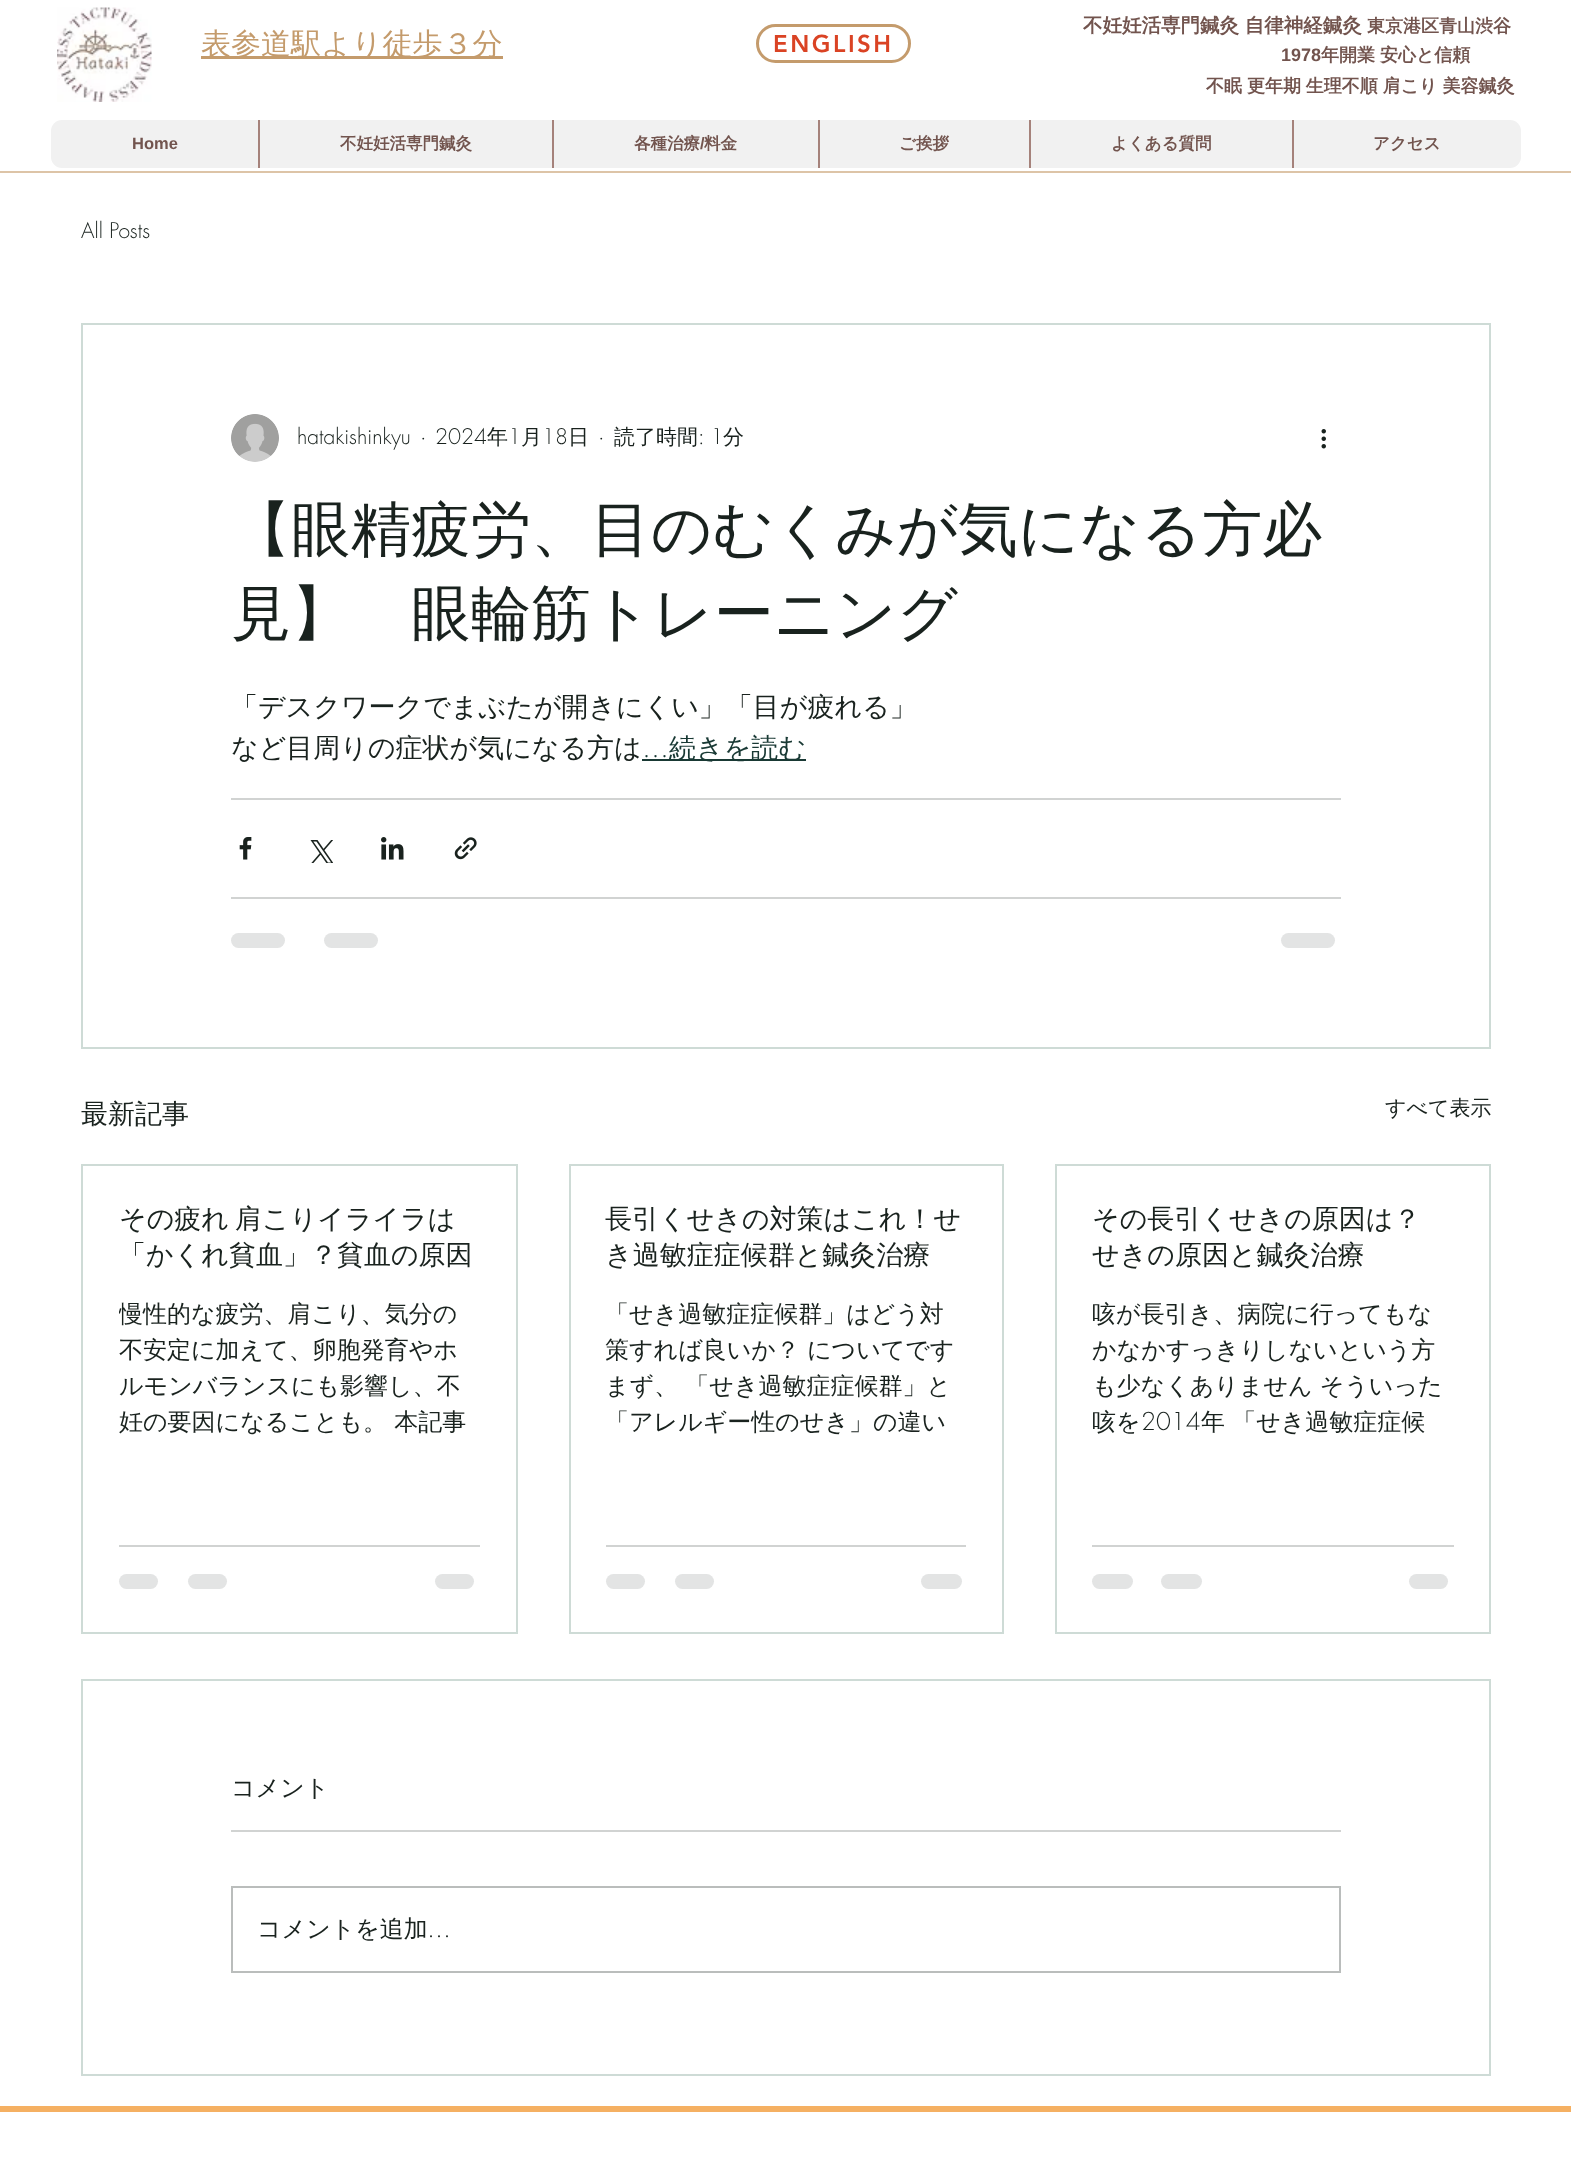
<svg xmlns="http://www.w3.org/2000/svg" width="1571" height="2176">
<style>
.a{font:bold 19.5px WenQuanYi Zen Hei;fill:#72544e}
.b{font:bold 18px WenQuanYi Zen Hei;fill:#72544e}
.c{font:500 30px WenQuanYi Zen Hei;fill:#c49b6c}
.d{font:900 24px 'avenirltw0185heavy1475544';letter-spacing:2.5px;fill:#da4324}
.e{font:bold 18px Liberation Sans;fill:#72544e}
.f{font:bold 16.5px Liberation Sans;fill:#72544e}
.g{font:bold 16.5px WenQuanYi Zen Hei;fill:#72544e}
.h{font:300 21px futura;fill:#19221e}
.i{font:500 21px WenQuanYi Zen Hei;fill:#19221e}
.j{font:500 60px WenQuanYi Zen Hei;fill:#19221e}
.k{font:500 27px WenQuanYi Zen Hei;fill:#19221e}
.l{font:300 27px futura;fill:#193934}
.m{font:500 27px WenQuanYi Zen Hei;fill:#193934}
.n{font:500 24px WenQuanYi Zen Hei;fill:#19221e}
.o{font:300 24px futura;fill:#19221e}
</style>
<defs>
<clipPath id="clip1"><path d="M119 1298h361v144H119z"/></clipPath>
</defs>
<rect width="100%" height="100%" fill="#fff"/>
<image href="1.png" x="57" y="7" width="95" height="95"/>
<path fill="#c49b6c" d="M201 56h302v3H201z"/>
<rect fill="none" stroke="#c49b6c" stroke-width="3" x="757.5" y="25.5" width="152" height="36" rx="18"/>
<rect fill="#f1f1f1" x="51" y="120" width="1470" height="48" rx="11"/>
<path fill="#a5827b" d="M258 120h2v48H258z"/>
<path fill="#a5827b" d="M552 120h2v48H552z"/>
<path fill="#a5827b" d="M818 120h2v48H818z"/>
<path fill="#a5827b" d="M1029 120h2v48H1029z"/>
<path fill="#a5827b" d="M1292 120h2v48H1292z"/>
<path fill="#ddc4a7" d="M0 171h1571v2H0z"/>
<path fill="none" stroke="#cedbd6" stroke-width="2" d="M82 324h1408v724H82z"/>
<image href="2.png" x="231" y="414" width="48" height="48"/>
<image href="3.png" x="1321" y="429" width="5" height="20"/>
<path fill="#193934" d="M642 759h164v2H642z"/>
<path fill="#d1d3d2" d="M231 798h1110v2H231z"/>
<image href="4.png" x="239" y="837" width="13" height="23"/>
<image href="5.png" x="310" y="840" width="23" height="23"/>
<image href="6.png" x="381" y="837" width="23" height="23"/>
<image href="7.png" x="454" y="837" width="23" height="23"/>
<path fill="#d1d3d2" d="M231 897h1110v2H231z"/>
<rect fill="#e3e4e4" x="231" y="933" width="54" height="15" rx="7.5"/>
<rect fill="#e3e4e4" x="324" y="933" width="54" height="15" rx="7.5"/>
<rect fill="#e3e4e4" x="1281" y="933" width="54" height="15" rx="7.5"/>
<path fill="none" stroke="#cedbd6" stroke-width="2" d="M82 1165h435v468H82z"/>
<path fill="#d1d3d2" d="M119 1545h361v2H119z"/>
<rect fill="#e3e4e4" x="119" y="1574" width="39" height="15" rx="7.5"/>
<rect fill="#e3e4e4" x="188" y="1574" width="39" height="15" rx="7.5"/>
<rect fill="#e3e4e4" x="435" y="1574" width="39" height="15" rx="7.5"/>
<path fill="none" stroke="#cedbd6" stroke-width="2" d="M570 1165h433v468H570z"/>
<path fill="#d1d3d2" d="M606 1545h360v2H606z"/>
<rect fill="#e3e4e4" x="606" y="1574" width="39" height="15" rx="7.5"/>
<rect fill="#e3e4e4" x="675" y="1574" width="39" height="15" rx="7.5"/>
<rect fill="#e3e4e4" x="921" y="1574" width="41" height="15" rx="7.5"/>
<path fill="none" stroke="#cedbd6" stroke-width="2" d="M1056 1165h434v468H1056z"/>
<path fill="#d1d3d2" d="M1092 1545h362v2H1092z"/>
<rect fill="#e3e4e4" x="1092" y="1574" width="41" height="15" rx="7.5"/>
<rect fill="#e3e4e4" x="1161" y="1574" width="41" height="15" rx="7.5"/>
<rect fill="#e3e4e4" x="1409" y="1574" width="39" height="15" rx="7.5"/>
<path fill="none" stroke="#cedbd6" stroke-width="2" d="M82 1680h1408v395H82z"/>
<path fill="#d1d3d2" d="M231 1830h1110v2H231z"/>
<path fill="none" stroke="#babdbc" stroke-width="2" d="M232 1887h1108v85H232z"/>
<path fill="#f5b062" d="M0 2106h1571v6H0z"/>
<text class="a" x="1083" y="32">不妊妊活専門鍼灸 自律神経鍼灸</text>
<text class="b" x="1367" y="32">東京港区青山渋谷</text>
<text class="c" x="201" y="54">表参道駅より徒歩３分</text>
<text class="d" x="773" y="52">ENGLISH</text>
<text class="e" x="1281" y="61">1978</text>
<text class="b" x="1321" y="61" word-spacing="-0.5">年開業 安心と信頼</text>
<text class="b" x="1206" y="92" word-spacing="-0.5">不眠 更年期 生理不順 肩こり 美容鍼灸</text>
<text class="f" x="132" y="149">Home</text>
<text class="g" x="340" y="149">不妊妊活専門鍼灸</text>
<text class="g" x="634" y="149">各種治療</text>
<text class="f" x="700" y="149">/</text>
<text class="g" x="704" y="149">料金</text>
<text class="g" x="899" y="149">ご挨拶</text>
<text class="g" x="1111" y="149">よくある質問</text>
<text class="g" x="1373" y="149">アクセス</text>
<text class="h" x="81" y="238">All Posts</text>
<text class="h" x="297" y="444">hatakishinkyu</text>
<text class="h" x="420" y="444">·</text>
<text class="h" x="435" y="444">2024</text>
<text class="i" x="487" y="444">年</text>
<text class="h" x="508" y="444">1</text>
<text class="i" x="521" y="444">月</text>
<text class="h" x="542" y="444">18</text>
<text class="i" x="568" y="444">日</text>
<text class="h" x="598" y="444">·</text>
<text class="i" x="614" y="444">読了時間</text>
<text class="h" x="698" y="444">: 1</text>
<text class="i" x="723" y="444">分</text>
<text class="j" x="231" y="550">【眼精疲労、目のむくみが気になる方必</text>
<text class="j" x="231" y="634">見】　眼輪筋トレーニング</text>
<text class="k" x="231" y="716">「デスクワークでまぶたが開きにくい」「目が疲れる」</text>
<text class="k" x="231" y="757">など目周りの症状が気になる方は</text>
<text class="l" x="642" y="757">…</text>
<text class="m" x="669" y="757">続きを読む</text>
<text class="k" x="81" y="1123">最新記事</text>
<text class="i" x="1385" y="1115">すべて表示</text>
<text class="k" x="119" y="1228" word-spacing="-2">その疲れ 肩こりイライラは</text>
<text class="k" x="119" y="1264">「かくれ貧血」？貧血の原因</text>
<g clip-path="url(#clip1)">
<text class="n" x="119" y="1322">慢性的な疲労、肩こり、気分の</text>
</g>
<text class="n" x="119" y="1358">不安定に加えて、卵胞発育やホ</text>
<text class="n" x="119" y="1394">ルモンバランスにも影響し、不</text>
<text class="n" x="119" y="1430">妊の要因になることも。 本記事</text>
<text class="k" x="605" y="1228">長引くせきの対策はこれ！せ</text>
<text class="k" x="605" y="1264">き過敏症症候群と鍼灸治療</text>
<text class="n" x="605" y="1322">「せき過敏症症候群」はどう対</text>
<text class="n" x="605" y="1358">策すれば良いか？ についてです</text>
<text class="n" x="605" y="1394">まず、 「せき過敏症症候群」と</text>
<text class="n" x="605" y="1430">「アレルギー性のせき」の違い</text>
<text class="k" x="1092" y="1228">その長引くせきの原因は？</text>
<text class="k" x="1092" y="1264">せきの原因と鍼灸治療</text>
<text class="n" x="1092" y="1322">咳が長引き、病院に行ってもな</text>
<text class="n" x="1092" y="1358">かなかすっきりしないという方</text>
<text class="n" x="1092" y="1394">も少なくありません そういった</text>
<text class="n" x="1092" y="1430">咳を</text>
<text class="o" x="1141" y="1430">2014</text>
<text class="n" x="1201" y="1430">年 「せき過敏症症候</text>
<text class="n" x="231" y="1796">コメント</text>
<text class="n" x="257" y="1937">コメントを追加</text>
<text class="o" x="427" y="1937">…</text>
</svg>
